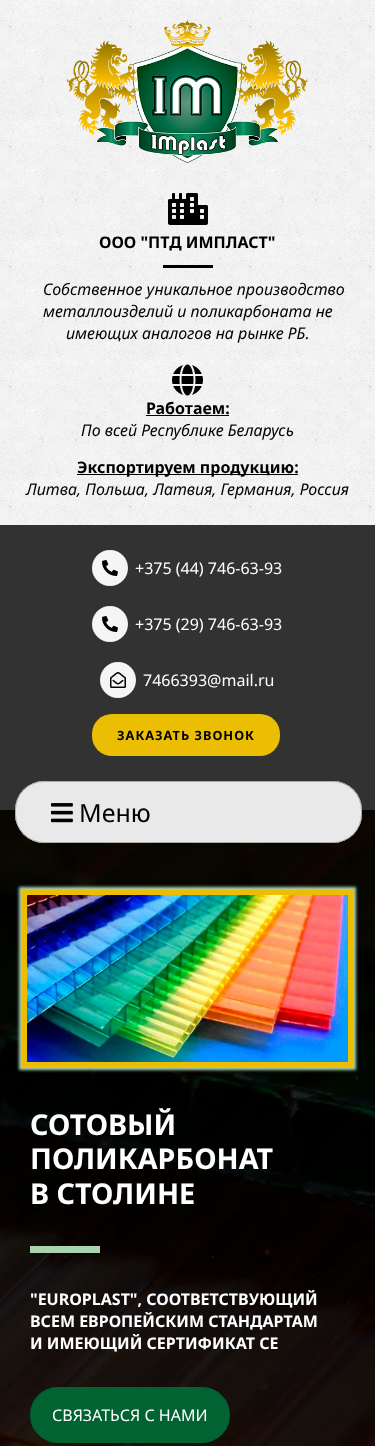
<svg xmlns="http://www.w3.org/2000/svg" width="375" height="1446">
<style>
.a{font:bold 16px Noto Sans;fill:#000}
.b{font:italic 16px Noto Sans;fill:#000}
.c{font:16px Noto Sans;fill:#fff}
.d{font:bold 12.75px Noto Sans;letter-spacing:1px;fill:#000}
.e{font:25px Noto Sans;fill:#000}
.f{font:bold 28.75px Noto Sans;fill:#fff}
.g{font:bold 16px Noto Sans;fill:#fff}
</style>
<rect width="100%" height="100%" fill="#fff"/>
<image href="1.png" x="0" y="0" width="375" height="525"/>
<image href="2.png" x="67" y="20" width="241" height="143"/>
<image href="3.png" x="168" y="193" width="40" height="32"/>
<path fill="#000" d="M163 265h50v3H163z"/>
<image href="4.png" x="172" y="364" width="31" height="32"/>
<path fill="#000" d="M146 415h83v1H146z"/>
<path fill="#000" d="M77 474h221v1H77z"/>
<path fill="#323232" d="M0 525h375v285H0z"/>
<circle fill="#f5f5f5" cx="110" cy="568" r="18"/>
<image href="5.png" x="102" y="560" width="16" height="16"/>
<circle fill="#f5f5f5" cx="110" cy="624" r="18"/>
<image href="5.png" x="102" y="616" width="16" height="16"/>
<circle fill="#f5f5f5" cx="118" cy="680" r="18"/>
<image href="6.png" x="110" y="672" width="16" height="16"/>
<rect fill="#ebbe03" x="92" y="714" width="188" height="42" rx="20"/>
<image href="8.png" x="0" y="810" width="375" height="636"/>
<rect fill="#808080" filter="blur(0.5px)" x="15" y="781" width="347" height="62" rx="29"/>
<rect fill="#e9e9e9" x="15" y="781" width="347" height="62" rx="29"/>
<rect fill="none" stroke="#80808099" x="15.5" y="781.5" width="346" height="61" rx="28.5"/>
<image href="7.png" x="51" y="803" width="22" height="20"/>
<path fill="#a9d3af" filter="blur(1.5px)" d="M19 887h337v183H19z"/>
<path fill="none" stroke="#ebbe03" stroke-width="5" d="M24.5 892.5h326v172H24.5z"/>
<image href="9.png" x="27" y="895" width="321" height="167"/>
<path fill="#a9d3af" d="M30 1246h70v7H30z"/>
<rect fill="#006331" stroke="#006331" stroke-width="2" x="31" y="1388" width="198" height="54" rx="27"/>
<text class="a" x="99" y="248">ООО "ПТД ИМПЛАСТ"</text>
<text class="b" x="43" y="295">Собственное уникальное производство</text>
<text class="b" x="43" y="317">металлоизделий и поликарбоната не</text>
<text class="b" x="66" y="339">имеющих аналогов на рынке РБ.</text>
<text class="a" x="146" y="414">Работаем:</text>
<text class="b" x="81" y="436">По всей Республике Беларусь</text>
<text class="a" x="77" y="473">Экспортируем продукцию:</text>
<text class="b" x="26" y="495">Литва, Польша, Латвия, Германия, Россия</text>
<text class="c" x="135" y="574">+375 (44) 746-63-93</text>
<text class="c" x="135" y="630">+375 (29) 746-63-93</text>
<text class="c" x="143" y="686">7466393@mail.ru</text>
<text class="d" x="117" y="740">ЗАКАЗАТЬ ЗВОНОК</text>
<text class="e" x="79" y="822">Меню</text>
<text class="f" x="30" y="1135">СОТОВЫЙ</text>
<text class="f" x="30" y="1169">ПОЛИКАРБОНАТ</text>
<text class="f" x="30" y="1204">В СТОЛИНЕ</text>
<text class="g" x="30" y="1305">"EUROPLAST", СООТВЕТСТВУЮЩИЙ</text>
<text class="g" x="30" y="1327">ВСЕМ ЕВРОПЕЙСКИМ СТАНДАРТАМ</text>
<text class="g" x="30" y="1349">И ИМЕЮЩИЙ СЕРТИФИКАТ CE</text>
<text class="c" x="52" y="1421">СВЯЗАТЬСЯ С НАМИ</text>
</svg>
